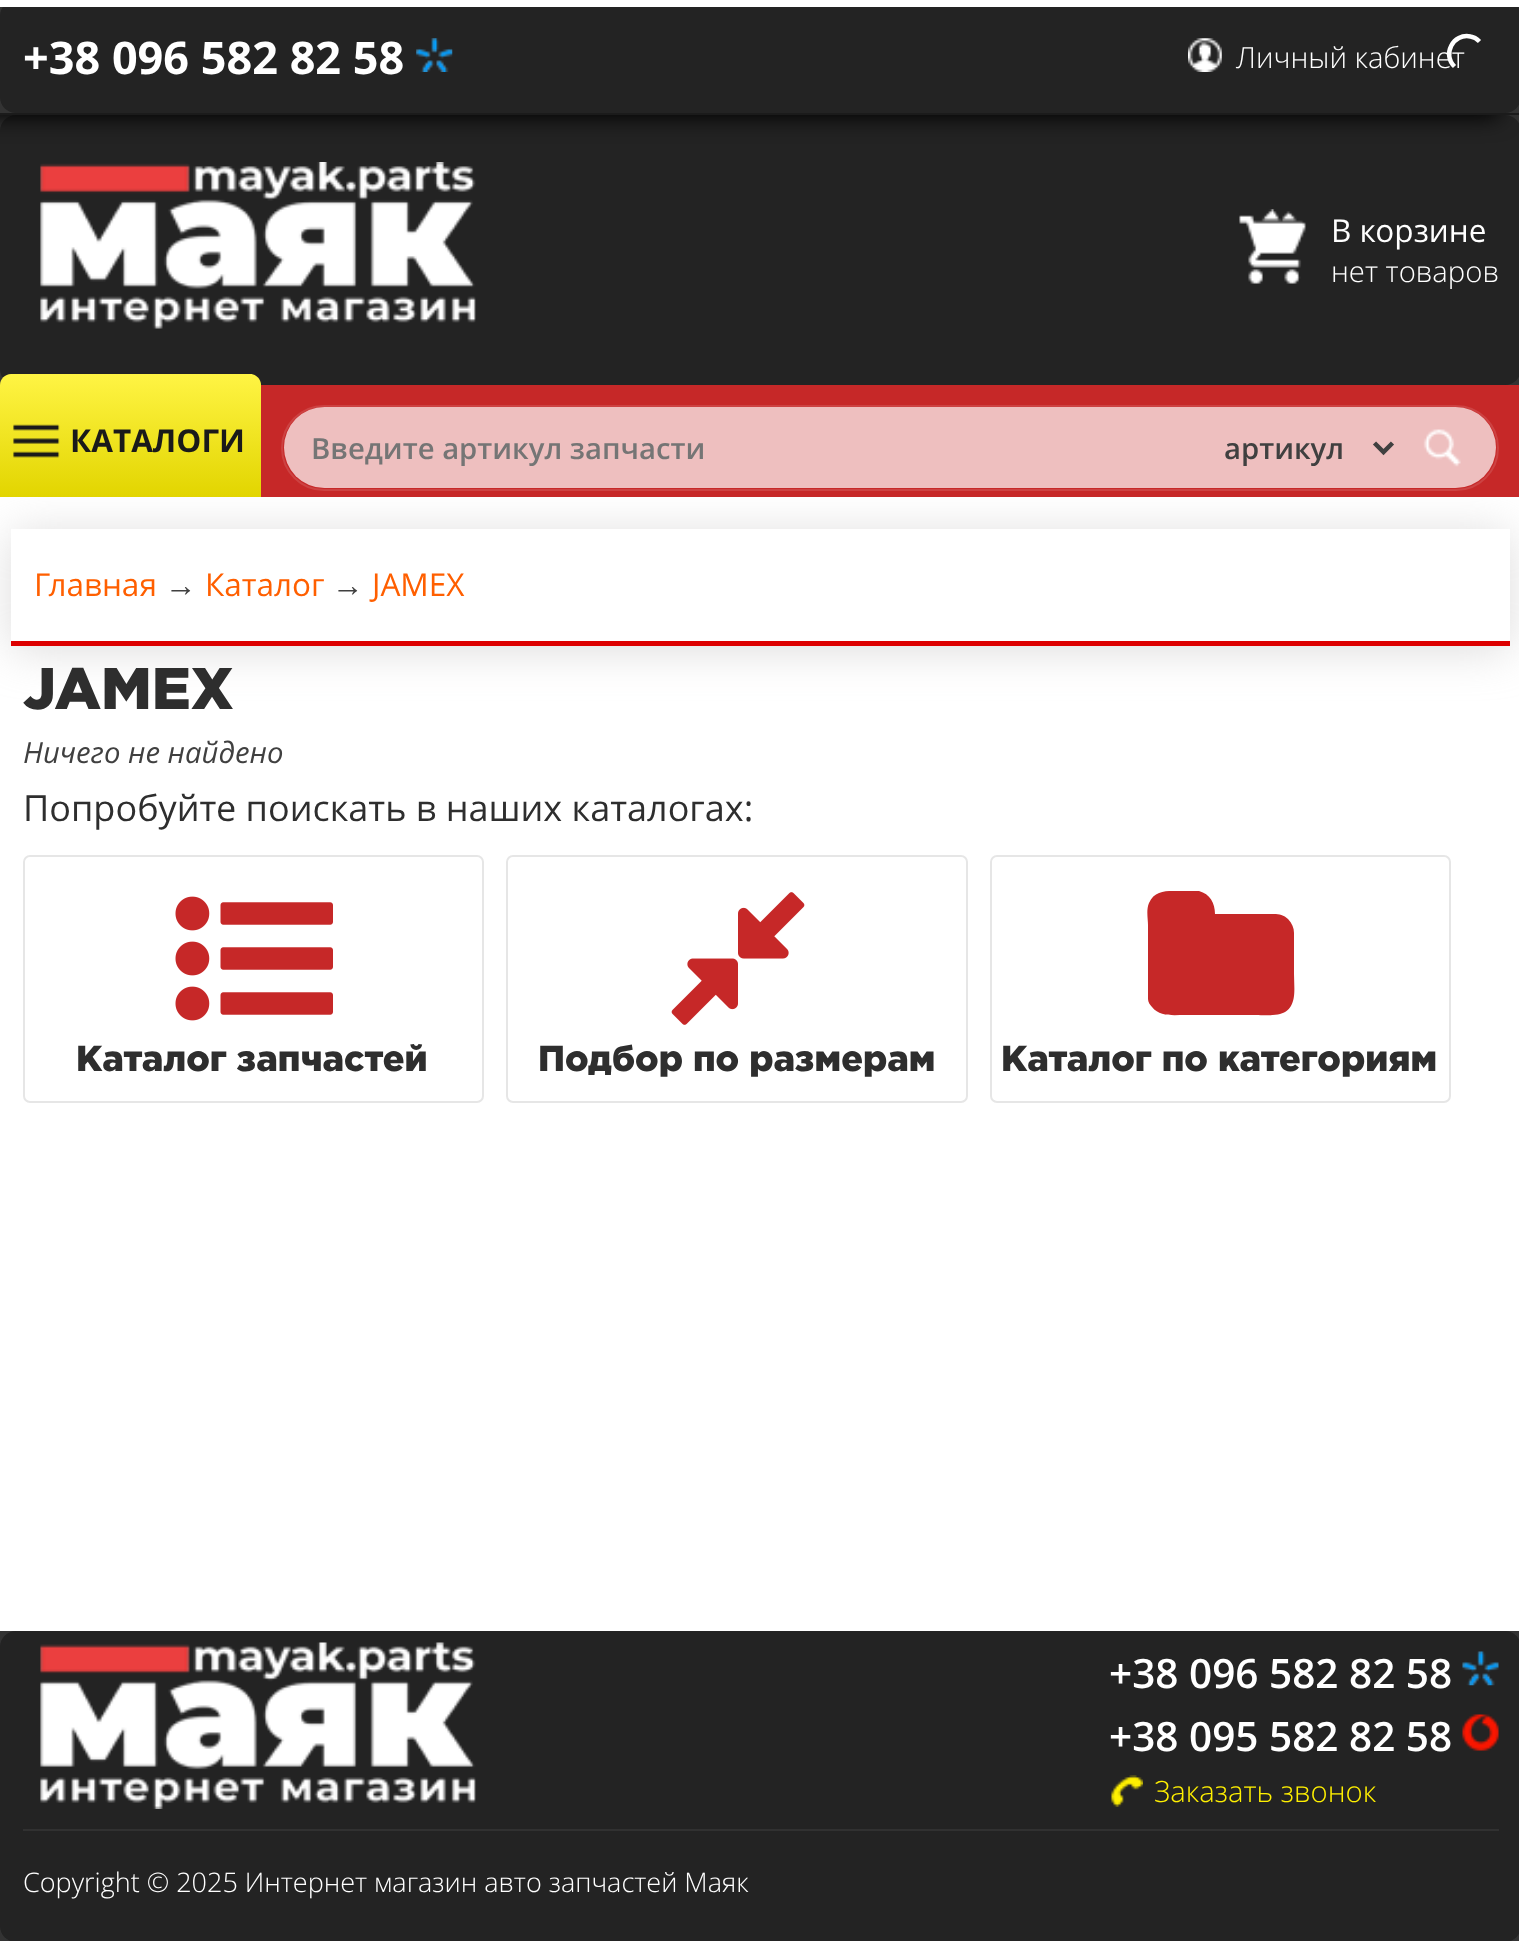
<svg xmlns="http://www.w3.org/2000/svg" width="1519" height="1941">
<style>
.a{font:bold 45px Open Sans;fill:#fff}
.b{font:300 29.25px Open Sans;fill:#fff}
.c{font:31.5px Open Sans;fill:#fff}
.d{font:bold 31.5px Open Sans;fill:#1a1a1a}
.e{font:600 29.25px Open Sans;fill:#757575}
.f{font:600 29.25px Open Sans;fill:#404040}
.g{font:31.5px Open Sans;fill:#ff5f00}
.h{font:31.5px Liberation Sans;fill:#404040}
.i{font:900 58.5px Gotham;fill:#2e2e2e}
.j{font:italic 29.25px Open Sans;fill:#404040}
.k{font:36px Open Sans;fill:#2e2e2e}
.l{font:900 36px Gotham;fill:#2e2e2e}
.m{font:600 40.5px Open Sans;fill:#fff}
.n{font:300 29.25px Open Sans;fill:#fff001}
.o{font:300 27px Open Sans;fill:#fff}
</style>
<defs>
<clipPath id="clip1"><path d="M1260 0h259v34h-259zm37-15l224.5 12l-.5 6.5l-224.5-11.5z" clip-rule="evenodd"/></clipPath>
<clipPath id="clip2"><path d="M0 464h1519v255h-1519zm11 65h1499v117h-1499z" clip-rule="evenodd"/></clipPath>
<linearGradient id="g1" gradientUnits="userSpaceOnUse" x1="131" y1="374" x2="131" y2="497"><stop offset="0" stop-color="#fff444"/><stop offset="1" stop-color="#e2d500"/></linearGradient>
</defs>
<rect width="100%" height="100%" fill="#fff"/>
<path fill="#333" d="M0 115h1519v270H0z"/>
<rect fill="#232323" y="115" width="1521" height="270" rx="16"/>
<path fill="#000" filter="blur(11px)" d="M-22 2h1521v115H-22z"/>
<path fill="#333" d="M0 7h1519v106H0z"/>
<rect fill="#232323" width="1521" height="113" rx="16"/>
<path fill="#fff" d="M0 0h1519v7H0z"/>
<g clip-path="url(#clip1)">
<path fill="#fff" filter="blur(11.5px)" d="M1296 -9h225v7H1296z"/>
</g>
<path fill="none" stroke="#fff" stroke-width="4.5" d="M1454.5 66.5c-12.5-12-1.5-33.5 16-30c3.5 .5 6.5 2.5 9 5"/>
<path fill="#1b1b1b" d="M0 113h1519v2H0z"/>
<image href="1.png" x="416" y="38" width="37" height="34"/>
<image href="2.png" x="1188" y="38" width="34" height="34"/>
<image href="3.png" x="40" y="162" width="436" height="167"/>
<image href="4.png" x="1239" y="209" width="67" height="75"/>
<g clip-path="url(#clip2)">
<path fill="#bcb9b980" filter="blur(22.5px)" d="M11 533h1499v117H11z"/>
</g>
<path fill="#c62828" d="M261 385h1258v112H261z"/>
<path fill="url(#g1)" d="M11 374h239c6 0 11 5 11 11v112h-261v-112c0-6 5-11 11-11z"/>
<image href="5.png" x="13" y="424" width="47" height="34"/>
<rect fill="none" stroke="#cd4242" stroke-width="2" x="282" y="406" width="1216" height="84" rx="42"/>
<rect fill="#ffffffb3" x="284" y="407" width="1212" height="81" rx="40.5"/>
<path fill="none" stroke="#404040" stroke-width="4.5" d="M1374.5 443l9 9l9-9"/>
<image href="6.png" x="1423" y="429" width="38" height="38"/>
<path fill="#d00" d="M11 641h1499v5H11z"/>
<rect fill="none" stroke="#e6e6e6" stroke-width="2" x="24" y="856" width="459" height="246" rx="6"/>
<image href="7.png" x="175" y="896" width="158" height="125"/>
<rect fill="none" stroke="#e6e6e6" stroke-width="2" x="507" y="856" width="460" height="246" rx="6"/>
<image href="8.png" x="671" y="892" width="134" height="133"/>
<rect fill="none" stroke="#e6e6e6" stroke-width="2" x="991" y="856" width="459" height="246" rx="6"/>
<path fill="#c62828" d="M1294 933v41c0 15 4 35-14 40c-7 2-19 1-24 1h-71c-12 0-25 2-33-8c-2-2-4-5-4-8v-74c0-6-2-15 1-22c6-14 20-12 32-12h18c11 3 16 12 16 23h59c5 0 10 1 14 5c4 4 6 9 6 14z"/>
<path fill="#333" d="M0 1631h1519v310H0z"/>
<rect fill="#232323" y="1631" width="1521" height="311" rx="16"/>
<image href="9.png" x="40" y="1642" width="436" height="167"/>
<image href="10.png" x="1462" y="1651" width="37" height="35"/>
<image href="11.png" x="1462" y="1714" width="37" height="37"/>
<image href="12.png" x="1111" y="1775" width="32" height="32"/>
<path fill="#313131" d="M23 1829h1476v2H23z"/>
<text class="a" x="23" y="74">+38 096 582 82 58</text>
<text class="b" x="1236" y="68">Личный кабинет</text>
<text class="c" x="1331" y="242">В корзине</text>
<text class="b" x="1331" y="282">нет товаров</text>
<text class="d" x="70" y="452">КАТАЛОГИ</text>
<text class="e" x="311" y="459">Введите артикул запчасти</text>
<text class="f" x="1224" y="459">артикул</text>
<text class="g" x="34" y="596">Главная</text>
<text class="h" x="165" y="596">→</text>
<text class="g" x="205" y="596">Каталог</text>
<text class="h" x="332" y="596">→</text>
<text class="g" x="372" y="596">JAMEX</text>
<text class="i" x="23" y="709">JAMEX</text>
<text class="j" x="23" y="763">Ничего не найдено</text>
<text class="k" x="23" y="821">Попробуйте поискать в наших каталогах:</text>
<text class="l" x="76" y="1071">Каталог запчастей</text>
<text class="l" x="538" y="1071">Подбор по размерам</text>
<text class="l" x="1001" y="1071">Каталог по категориям</text>
<text class="m" x="1109" y="1688">+38 096 582 82 58</text>
<text class="m" x="1109" y="1751">+38 095 582 82 58</text>
<text class="n" x="1154" y="1802">Заказать звонок</text>
<text class="o" x="23" y="1892">Copyright © 2025 Интернет магазин авто запчастей Маяк</text>
</svg>
